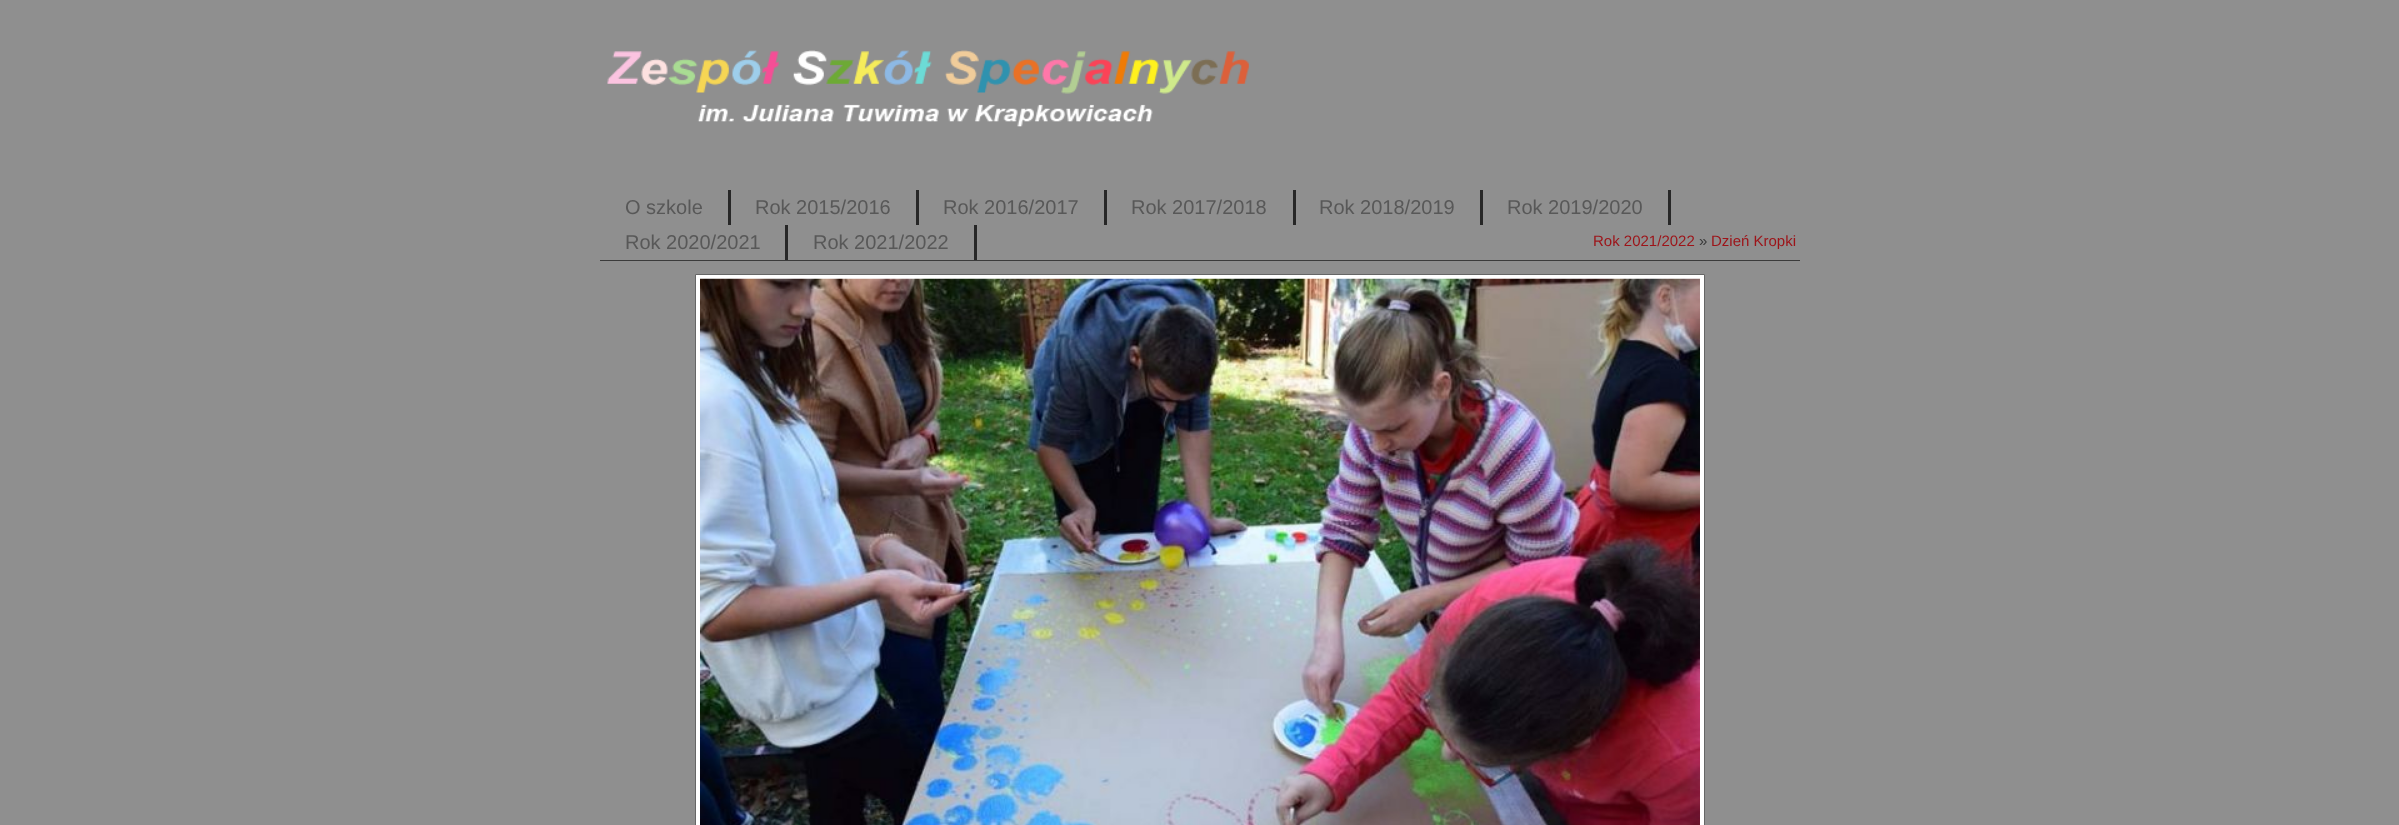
<svg xmlns="http://www.w3.org/2000/svg" width="2399" height="825">
<style>
.a{font:20px Liberation Sans;fill:#585858}
.b{font:15px Liberation Sans;fill:#9d1318}
.c{font:15px Liberation Sans;fill:#3b3b3b}
</style>
<rect width="100%" height="100%" fill="#8f8f8f"/>
<path fill="#3b3b3b" d="M600 260h1200v1H600z"/>
<image href="1.png" x="607" y="50" width="642" height="77"/>
<path fill="#272727" d="M728 190h3v35H728z"/>
<path fill="#272727" d="M916 190h3v35H916z"/>
<path fill="#272727" d="M1104 190h3v35H1104z"/>
<path fill="#272727" d="M1293 190h3v35H1293z"/>
<path fill="#272727" d="M1480 190h3v35H1480z"/>
<path fill="#272727" d="M1668 190h3v35H1668z"/>
<path fill="#272727" d="M785 225h3v35H785z"/>
<path fill="#272727" d="M974 225h3v35H974z"/>
<path fill="#fff" stroke="#666" d="M695.5 274.5h1009v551H695.5z"/>
<image href="2.png" x="700" y="278" width="1000" height="547"/>
<text class="a" x="625" y="214">O szkole</text>
<text class="a" x="755" y="214">Rok 2015/2016</text>
<text class="a" x="943" y="214">Rok 2016/2017</text>
<text class="a" x="1131" y="214">Rok 2017/2018</text>
<text class="a" x="1319" y="214">Rok 2018/2019</text>
<text class="a" x="1507" y="214">Rok 2019/2020</text>
<text class="a" x="625" y="249">Rok 2020/2021</text>
<text class="a" x="813" y="249">Rok 2021/2022</text>
<text class="b" x="1593" y="246">Rok 2021/2022</text>
<text class="c" x="1699" y="246">»</text>
<text class="b" x="1711" y="246">Dzień Kropki</text>
</svg>
